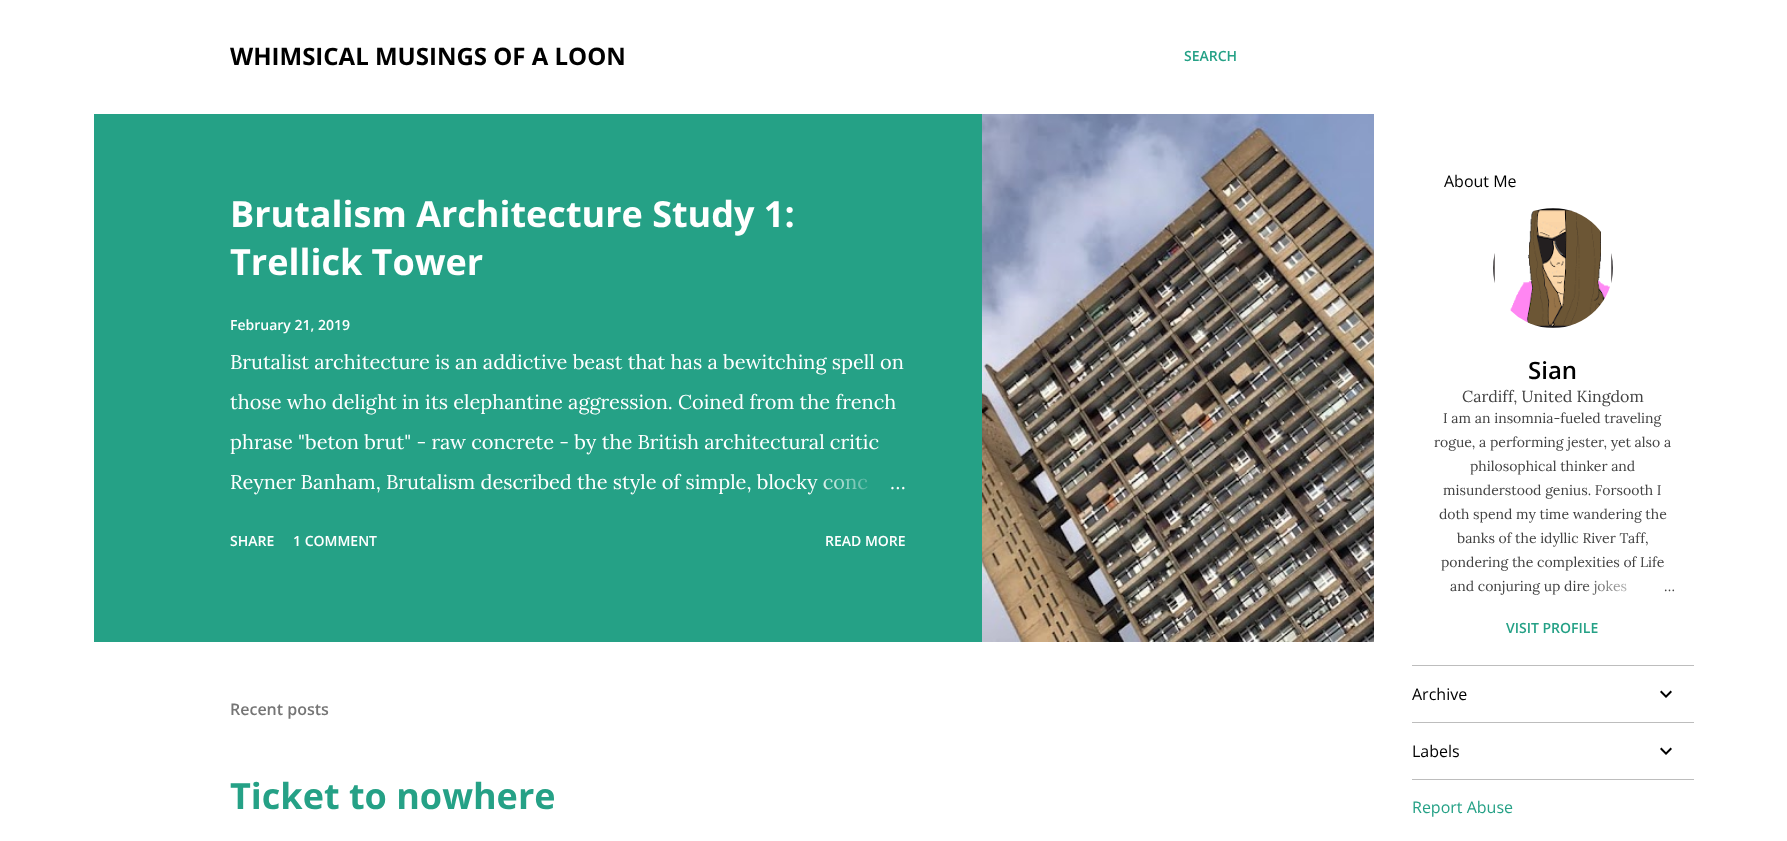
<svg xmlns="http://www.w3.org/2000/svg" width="1787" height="841">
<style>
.a{font:bold 24px Open Sans;fill:#000}
.b{font:600 14px Open Sans;fill:#25a186}
.c{font:bold 36px Open Sans;fill:#fff}
.d{font:600 14px Open Sans;fill:#fff}
.e{font:20px Lora;fill:#fff}
.f{font:600 16px Open Sans;fill:#757575}
.g{font:bold 36px Open Sans;fill:#25a186}
.h{font:16px Open Sans;fill:#000}
.i{font:600 24px Open Sans;fill:#000}
.j{font:16px Lora;fill:#424242}
.k{font:14px Lora;fill:#424242}
.l{font:16px Open Sans;fill:#25a186}
</style>
<defs>
<clipPath id="clip1"><path d="M230 44h1008v38H230z"/></clipPath>
<linearGradient id="g1" gradientUnits="userSpaceOnUse" x1="906" y1="482" x2="810" y2="482"><stop offset="0" stop-color="#25a186"/><stop offset="0.2" stop-color="#25a186"/><stop offset="1" stop-color="#25a186" stop-opacity="0"/></linearGradient>
<linearGradient id="g2" gradientUnits="userSpaceOnUse" x1="1676" y1="586" x2="1580" y2="586"><stop offset="0" stop-color="#fff"/><stop offset="0.2" stop-color="#fff"/><stop offset="1" stop-color="#fff" stop-opacity="0"/></linearGradient>
</defs>
<rect width="100%" height="100%" fill="#fff"/>
<path fill="#25a186" d="M94 114h888v528H94z"/>
<image href="1.png" x="982" y="114" width="392" height="528"/>
<image href="2.png" x="1493" y="208" width="120" height="120"/>
<path fill="#bdbdbd" d="M1412 665h282v1H1412z"/>
<image href="3.png" x="1660" y="690" width="12" height="8"/>
<path fill="#bdbdbd" d="M1412 722h282v1H1412z"/>
<image href="3.png" x="1660" y="747" width="12" height="8"/>
<path fill="#bdbdbd" d="M1412 779h282v1H1412z"/>
<g clip-path="url(#clip1)">
<text class="a" x="230" y="65">WHIMSICAL MUSINGS OF A LOON</text>
</g>
<text class="b" x="1184" y="61">SEARCH</text>
<text class="c" x="230" y="227">Brutalism Architecture Study 1:</text>
<text class="c" x="230" y="275">Trellick Tower</text>
<text class="d" x="230" y="330">February 21, 2019</text>
<text class="e" x="230" y="369">Brutalist architecture is an addictive beast that has a bewitching spell on</text>
<text class="e" x="230" y="409">those who delight in its elephantine aggression. Coined from the french</text>
<text class="e" x="230" y="449">phrase "beton brut" - raw concrete - by the British architectural critic</text>
<text class="e" x="230" y="489">Reyner Banham, Brutalism described the style of simple, blocky conc</text>
<path fill="url(#g1)" d="M812 478h55v12H812z"/>
<text class="e" x="890" y="489">…</text>
<text class="d" x="230" y="546">SHARE</text>
<text class="d" x="293" y="546">1 COMMENT</text>
<text class="d" x="825" y="546">READ MORE</text>
<text class="f" x="230" y="715">Recent posts</text>
<text class="g" x="230" y="809">Ticket to nowhere</text>
<text class="h" x="1444" y="187">About Me</text>
<text class="i" x="1528" y="379">Sian</text>
<text class="j" x="1462" y="402">Cardiff, United Kingdom</text>
<text class="k" x="1443" y="423">I am an insomnia-fueled traveling</text>
<text class="k" x="1434" y="447">rogue, a performing jester, yet also a</text>
<text class="k" x="1470" y="471">philosophical thinker and</text>
<text class="k" x="1443" y="495">misunderstood genius. Forsooth I</text>
<text class="k" x="1439" y="519">doth spend my time wandering the</text>
<text class="k" x="1457" y="543">banks of the idyllic River Taff,</text>
<text class="k" x="1441" y="567">pondering the complexities of Life</text>
<text class="k" x="1450" y="591">and conjuring up dire jokes</text>
<path fill="url(#g2)" d="M1583 580h44v15H1583z"/>
<text class="k" x="1664" y="591">…</text>
<text class="b" x="1506" y="633">VISIT PROFILE</text>
<text class="h" x="1412" y="700">Archive</text>
<text class="h" x="1412" y="757">Labels</text>
<text class="l" x="1412" y="813">Report Abuse</text>
</svg>
